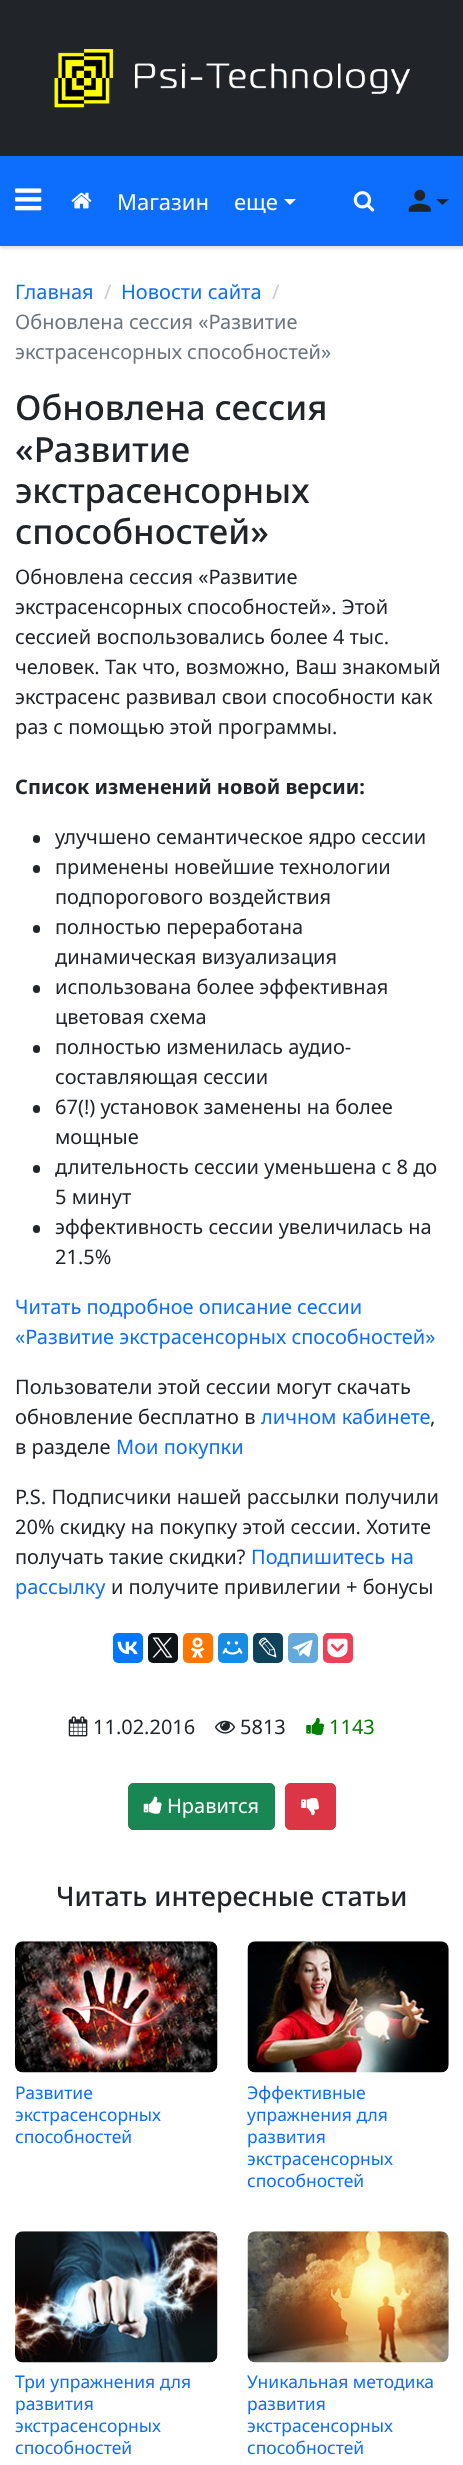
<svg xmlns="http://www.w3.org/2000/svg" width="463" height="2465">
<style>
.a{font:22px Noto Sans;fill:#fff}
.b{font:20px Noto Sans;fill:#0d6efd}
.c{font:20px Noto Sans;fill:#ccc}
.d{font:20px Noto Sans;fill:#6c757d}
.e{font:500 34.5px Noto Sans;fill:#212529}
.f{font:20px Noto Sans;fill:#212529}
.g{font:bold 20px Noto Sans;fill:#212529}
.h{font:20px Noto Sans;fill:#008000}
.i{font:20px Noto Sans;fill:#fff}
.j{font:500 26.9px Noto Sans;fill:#212529}
.k{font:17.5px Noto Sans;fill:#0d6efd}
</style>
<rect width="100%" height="100%" fill="#fff"/>
<path fill="#212529" d="M0 0h463v156H0z"/>
<image href="1.png" x="54" y="49" width="356" height="59"/>
<path fill="#0000001a" filter="blur(1px)" d="M0 159h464v90H0z"/>
<path fill="#0d6efd" d="M0 156h463v90H0z"/>
<image href="2.png" x="15" y="188" width="27" height="23"/>
<image href="3.png" x="71" y="192" width="21" height="17"/>
<path fill="#fff" d="M284 199h12l-6 6z"/>
<image href="4.png" x="353" y="191" width="22" height="21"/>
<image href="5.png" x="408" y="189" width="23" height="23"/>
<path fill="#212529" d="M436 199h13l-6.5 6z"/>
<rect fill="#212529" x="33" y="835" width="7" height="8" rx="3.5"/>
<rect fill="#212529" x="33" y="865" width="7" height="8" rx="3.5"/>
<rect fill="#212529" x="33" y="925" width="7" height="8" rx="3.5"/>
<rect fill="#212529" x="33" y="985" width="7" height="8" rx="3.5"/>
<rect fill="#212529" x="33" y="1045" width="7" height="8" rx="3.5"/>
<rect fill="#212529" x="33" y="1105" width="7" height="8" rx="3.5"/>
<rect fill="#212529" x="33" y="1165" width="7" height="8" rx="3.5"/>
<rect fill="#212529" x="33" y="1225" width="7" height="8" rx="3.5"/>
<rect fill="#07f" x="113" y="1633" width="30" height="30" rx="5"/>
<image href="6.png" x="117" y="1641" width="21" height="14"/>
<rect fill="#0f1419" x="148" y="1633" width="30" height="30" rx="5"/>
<image href="7.png" x="152" y="1637" width="21" height="21"/>
<rect fill="#f70" x="183" y="1633" width="30" height="30" rx="5"/>
<image href="8.png" x="190" y="1637" width="15" height="21"/>
<rect fill="#168de2" x="218" y="1633" width="30" height="30" rx="5"/>
<image href="9.png" x="222" y="1641" width="21" height="14"/>
<rect fill="#0d425a" x="253" y="1633" width="30" height="30" rx="5"/>
<image href="10.png" x="258" y="1637" width="19" height="21"/>
<rect fill="#64a9dc" x="288" y="1633" width="30" height="30" rx="5"/>
<image href="11.png" x="292" y="1640" width="21" height="17"/>
<rect fill="#ee4056" x="323" y="1633" width="30" height="30" rx="5"/>
<image href="12.png" x="327" y="1638" width="21" height="20"/>
<image href="13.png" x="68" y="1716" width="20" height="21"/>
<image href="14.png" x="215" y="1720" width="20" height="14"/>
<image href="15.png" x="306" y="1717" width="19" height="18"/>
<rect fill="#198754" stroke="#198754" x="128.5" y="1783.5" width="146" height="46" rx="4.5"/>
<image href="16.png" x="143" y="1796" width="19" height="18"/>
<rect fill="#dc3545" stroke="#dc3545" x="285.5" y="1783.5" width="50" height="46" rx="4.5"/>
<image href="17.png" x="301" y="1798" width="19" height="18"/>
<image href="18.png" x="15" y="1941" width="203" height="132"/>
<image href="19.png" x="247" y="1941" width="202" height="132"/>
<image href="20.png" x="15" y="2231" width="203" height="132"/>
<image href="21.png" x="247" y="2231" width="202" height="132"/>
<text class="a" x="117" y="210">Магазин</text>
<text class="a" x="234" y="210">еще</text>
<text class="b" x="15" y="299">Главная</text>
<text class="c" x="104" y="299">/</text>
<text class="b" x="121" y="299">Новости сайта</text>
<text class="c" x="272" y="299">/</text>
<text class="d" x="15" y="329">Обновлена сессия «Развитие</text>
<text class="d" x="15" y="359">экстрасенсорных способностей»</text>
<text class="e" x="15" y="420">Обновлена сессия</text>
<text class="e" x="15" y="462">«Развитие</text>
<text class="e" x="15" y="503">экстрасенсорных</text>
<text class="e" x="15" y="544">способностей»</text>
<text class="f" x="15" y="584">Обновлена сессия «Развитие</text>
<text class="f" x="15" y="614">экстрасенсорных способностей». Этой</text>
<text class="f" x="15" y="644">сессией воспользовались более 4 тыс.</text>
<text class="f" x="15" y="674">человек. Так что, возможно, Ваш знакомый</text>
<text class="f" x="15" y="704">экстрасенс развивал свои способности как</text>
<text class="f" x="15" y="734">раз с помощью этой программы.</text>
<text class="g" x="15" y="794">Список изменений новой версии:</text>
<text class="f" x="55" y="844">улучшено семантическое ядро сессии</text>
<text class="f" x="55" y="874">применены новейшие технологии</text>
<text class="f" x="55" y="904">подпорогового воздействия</text>
<text class="f" x="55" y="934">полностью переработана</text>
<text class="f" x="55" y="964">динамическая визуализация</text>
<text class="f" x="55" y="994">использована более эффективная</text>
<text class="f" x="55" y="1024">цветовая схема</text>
<text class="f" x="55" y="1054">полностью изменилась аудио-</text>
<text class="f" x="55" y="1084">составляющая сессии</text>
<text class="f" x="55" y="1114">67(!) установок заменены на более</text>
<text class="f" x="55" y="1144">мощные</text>
<text class="f" x="55" y="1174">длительность сессии уменьшена с 8 до</text>
<text class="f" x="55" y="1204">5 минут</text>
<text class="f" x="55" y="1234">эффективность сессии увеличилась на</text>
<text class="f" x="55" y="1264">21.5%</text>
<text class="b" x="15" y="1314">Читать подробное описание сессии</text>
<text class="b" x="15" y="1344">«Развитие экстрасенсорных способностей»</text>
<text class="f" x="15" y="1394">Пользователи этой сессии могут скачать</text>
<text class="f" x="15" y="1424">обновление бесплатно в</text>
<text class="b" x="261" y="1424">личном кабинете</text>
<text class="f" x="430" y="1424">,</text>
<text class="f" x="15" y="1454">в разделе</text>
<text class="b" x="116" y="1454">Мои покупки</text>
<text class="f" x="15" y="1504">P.S. Подписчики нашей рассылки получили</text>
<text class="f" x="15" y="1534">20% скидку на покупку этой сессии. Хотите</text>
<text class="f" x="15" y="1564">получать такие скидки?</text>
<text class="b" x="251" y="1564">Подпишитесь на</text>
<text class="b" x="15" y="1594">рассылку</text>
<text class="f" x="111" y="1594">и получите привилегии + бонусы</text>
<text class="f" x="93" y="1734">11.02.2016</text>
<text class="f" x="240" y="1734">5813</text>
<text class="h" x="329" y="1734">1143</text>
<text class="i" x="167" y="1813">Нравится</text>
<text class="j" x="56" y="1906">Читать интересные статьи</text>
<text class="k" x="15" y="2099">Развитие</text>
<text class="k" x="15" y="2121">экстрасенсорных</text>
<text class="k" x="15" y="2143">способностей</text>
<text class="k" x="247" y="2099">Эффективные</text>
<text class="k" x="247" y="2121">упражнения для</text>
<text class="k" x="247" y="2143">развития</text>
<text class="k" x="247" y="2165">экстрасенсорных</text>
<text class="k" x="247" y="2187">способностей</text>
<text class="k" x="15" y="2388">Три упражнения для</text>
<text class="k" x="15" y="2410">развития</text>
<text class="k" x="15" y="2432">экстрасенсорных</text>
<text class="k" x="15" y="2454">способностей</text>
<text class="k" x="247" y="2388">Уникальная методика</text>
<text class="k" x="247" y="2410">развития</text>
<text class="k" x="247" y="2432">экстрасенсорных</text>
<text class="k" x="247" y="2454">способностей</text>
</svg>
